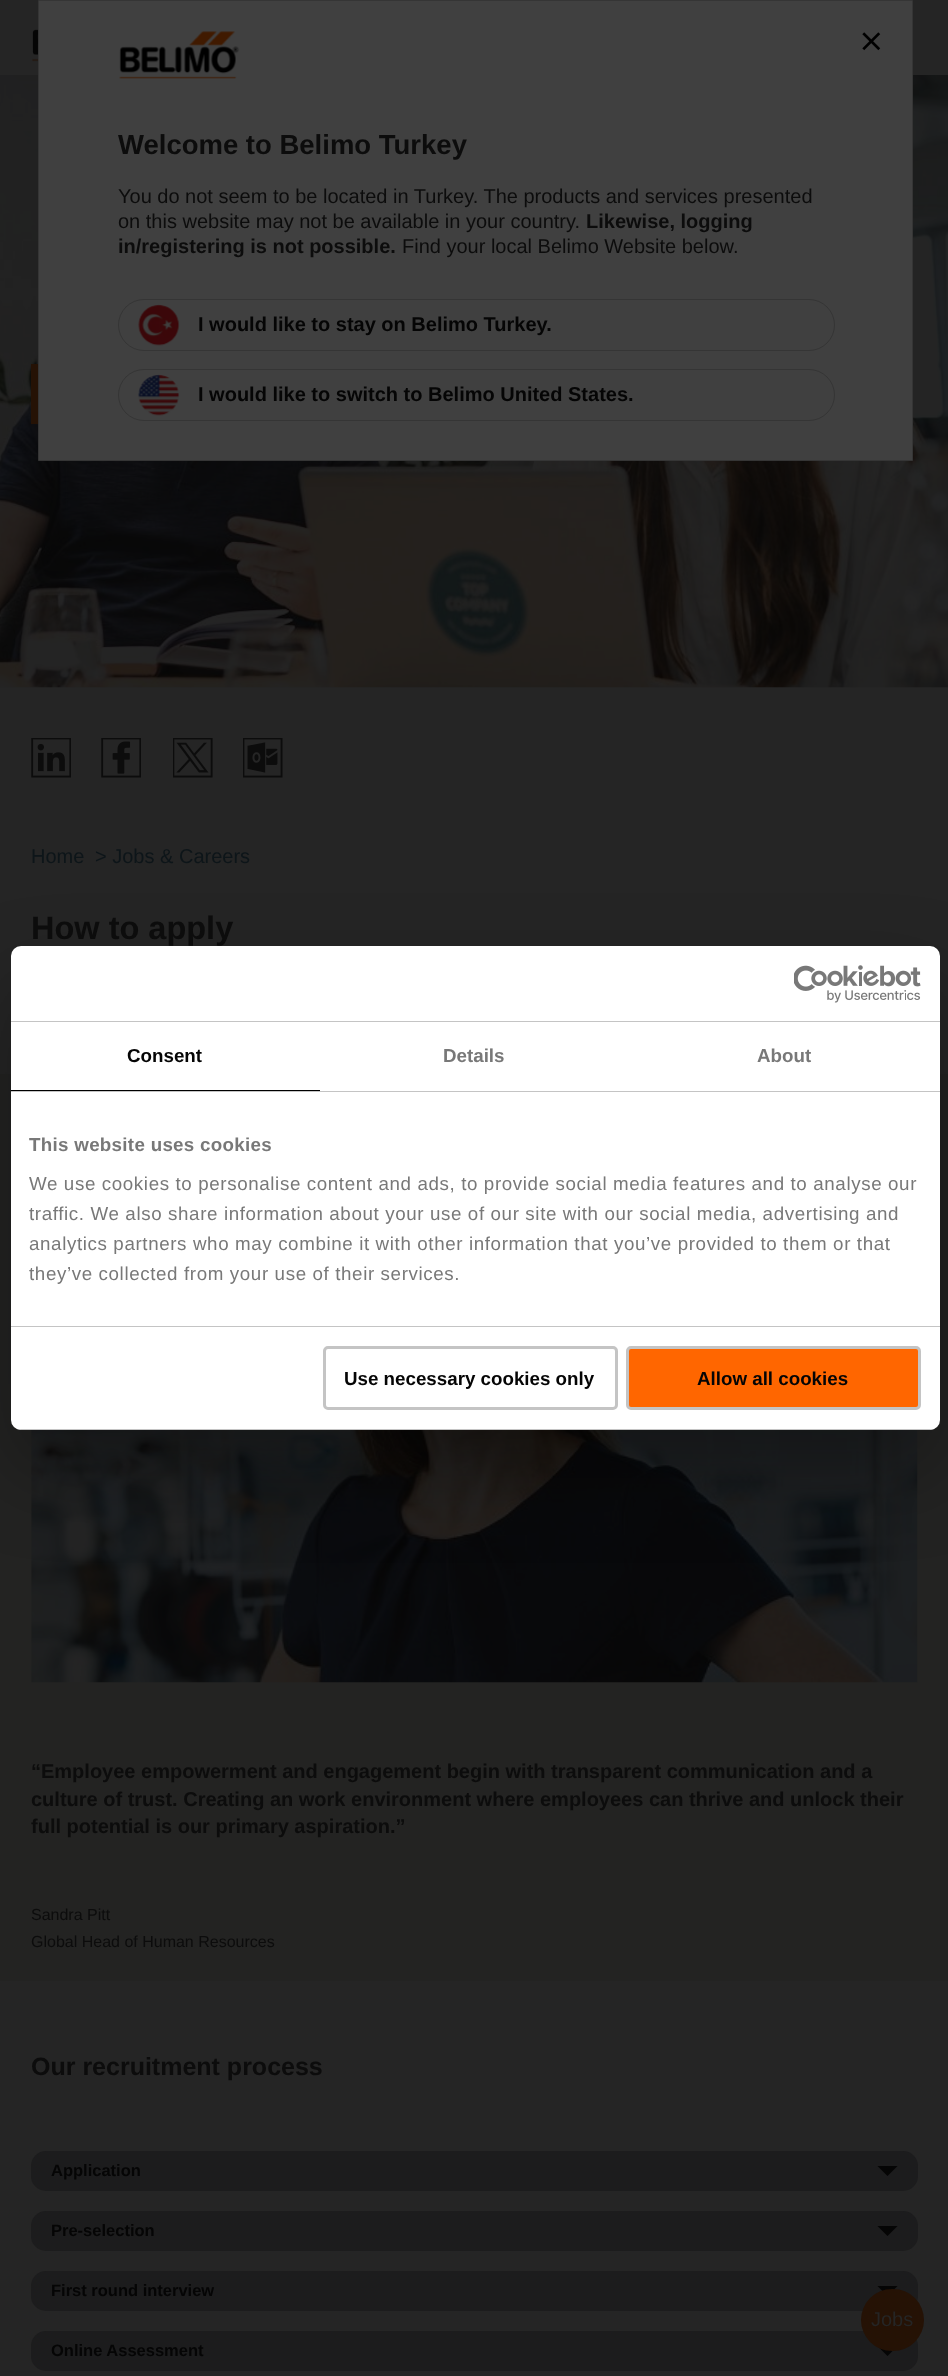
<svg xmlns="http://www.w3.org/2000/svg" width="948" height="2376">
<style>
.a{font:bold 27.5px Liberation Sans;fill:#0c0c0c}
.b{font:20px Liberation Sans;fill:#0c0c0c}
.c{font:bold 20px Liberation Sans;fill:#0c0c0c}
.d{font:bold 20px Liberation Sans;fill:#050505}
.e{font:20px Liberation Sans;fill:#0d1519}
.f{font:bold 32.5px Liberation Sans;fill:#0c0c0c}
.g{font:16px Liberation Sans;fill:#0c0c0c}
.h{font:bold 25px Liberation Sans;fill:#0c0c0c}
.i{font:bold 16.5px Liberation Sans;fill:#050505}
.j{font:20px Liberation Sans;fill:#252525}
.k{font:bold 18.75px Liberation Sans;fill:#050505}
.l{font:bold 18.75px Liberation Sans;fill:#787878}
.m{font:bold 18.75px Liberation Sans;letter-spacing:0.3px;fill:#787878}
.n{font:18.75px Liberation Sans;letter-spacing:0.62px;fill:#787878}
</style>
<defs>
<clipPath id="clip1"><rect x="11" y="946" width="929" height="484" rx="10"/></clipPath>
</defs>
<rect width="100%" height="100%" fill="#252525"/>
<image href="6.png" x="0" y="75" width="948" height="613"/>
<path fill="#404040" stroke="#353535" d="M38.5 0.5h874v460H38.5z"/>
<image href="1.png" x="119" y="31" width="121" height="48"/>
<image href="2.png" x="862" y="32" width="19" height="19"/>
<image href="3.png" x="138" y="304" width="42" height="42"/>
<rect fill="none" stroke="#353535" x="118.5" y="299.5" width="716" height="51" rx="25.5"/>
<image href="4.png" x="138" y="374" width="42" height="42"/>
<rect fill="none" stroke="#353535" x="118.5" y="369.5" width="716" height="51" rx="25.5"/>
<image href="5.png" x="32" y="29" width="6" height="33"/>
<path fill="#251205" d="M31 364h7v60H31z"/>
<image href="7.png" x="31" y="738" width="40" height="40"/>
<image href="8.png" x="101" y="738" width="40" height="40"/>
<image href="9.png" x="173" y="738" width="40" height="40"/>
<image href="10.png" x="243" y="738" width="40" height="40"/>
<path fill="#232322" d="M0 1074h948v907H0z"/>
<image href="11.png" x="31" y="1430" width="887" height="253"/>
<rect fill="#1c1c1d" x="31" y="2151" width="887" height="40" rx="15"/>
<path fill="#050505" d="M897.5 2166l-10 10l-10-10z"/>
<rect fill="#1c1c1d" x="31" y="2211" width="887" height="40" rx="15"/>
<path fill="#050505" d="M897.5 2226l-10 10l-10-10z"/>
<rect fill="#1c1c1d" x="31" y="2271" width="887" height="40" rx="15"/>
<path fill="#050505" d="M897.5 2286l-10 10l-10-10z"/>
<rect fill="#1c1c1d" x="31" y="2331" width="887" height="40" rx="15"/>
<path fill="#050505" d="M897.5 2346l-10 10l-10-10z"/>
<rect fill="#251205" x="861" y="2289" width="63" height="62" rx="31"/>
<rect fill="#0000004d" filter="blur(42.5px)" x="11" y="986" width="929" height="484" rx="10"/>
<rect fill="#fff" x="11" y="946" width="929" height="484" rx="10"/>
<path fill="#c4c4c4" d="M11 1021h929v1H11z"/>
<image href="12.png" x="794" y="965" width="127" height="38"/>
<path fill="#c4c4c4" d="M11 1091h929v1H11z"/>
<path fill="#000" d="M11 1090h309v1H11z"/>
<path fill="#c4c4c4" d="M11 1326h929v1H11z"/>
<g clip-path="url(#clip1)">
<path fill="#c4c4c4" d="M11 1429h929v1H11z"/>
</g>
<rect fill="none" stroke="#c4c4c4" stroke-width="3" x="324.5" y="1347.5" width="292" height="61" rx="3.5"/>
<rect fill="#f60" stroke="#c4c4c4" stroke-width="3" x="627.5" y="1347.5" width="292" height="61" rx="3.5"/>
<text class="a" x="118" y="154">Welcome to Belimo Turkey</text>
<text class="b" x="118" y="203">You do not seem to be located in Turkey. The products and services presented</text>
<text class="b" x="118" y="228">on this website may not be available in your country.</text>
<text class="c" x="586" y="228">Likewise, logging</text>
<text class="c" x="118" y="253">in/registering is not possible.</text>
<text class="b" x="402" y="253">Find your local Belimo Website below.</text>
<text class="d" x="198" y="331">I would like to stay on Belimo Turkey.</text>
<text class="d" x="198" y="401">I would like to switch to Belimo United States.</text>
<text class="e" x="31" y="863">Home</text>
<text class="e" x="95" y="863">&gt; Jobs &amp; Careers</text>
<text class="f" x="31" y="939">How to apply</text>
<text class="c" x="31" y="1778">“Employee empowerment and engagement begin with transparent communication and a</text>
<text class="c" x="31" y="1806">culture of trust. Creating an work environment where employees can thrive and unlock their</text>
<text class="c" x="31" y="1833">full potential is our primary aspiration.”</text>
<text class="g" x="31" y="1920">Sandra Pitt</text>
<text class="g" x="31" y="1947">Global Head of Human Resources</text>
<text class="h" x="31" y="2075">Our recruitment process</text>
<text class="i" x="51" y="2176">Application</text>
<text class="i" x="51" y="2236">Pre-selection</text>
<text class="i" x="51" y="2296">First round interview</text>
<text class="i" x="51" y="2356">Online Assessment</text>
<text class="j" x="871" y="2326">Jobs</text>
<text class="k" x="127" y="1062">Consent</text>
<text class="l" x="443" y="1062">Details</text>
<text class="l" x="757" y="1062">About</text>
<text class="m" x="29" y="1151">This website uses cookies</text>
<text class="n" x="29" y="1190">We use cookies to personalise content and ads, to provide social media features and to analyse our</text>
<text class="n" x="29" y="1220">traffic. We also share information about your use of our site with our social media, advertising and</text>
<text class="n" x="29" y="1250">analytics partners who may combine it with other information that you’ve provided to them or that</text>
<text class="n" x="29" y="1280">they’ve collected from your use of their services.</text>
<text class="k" x="344" y="1385">Use necessary cookies only</text>
<text class="k" x="697" y="1385">Allow all cookies</text>
</svg>
